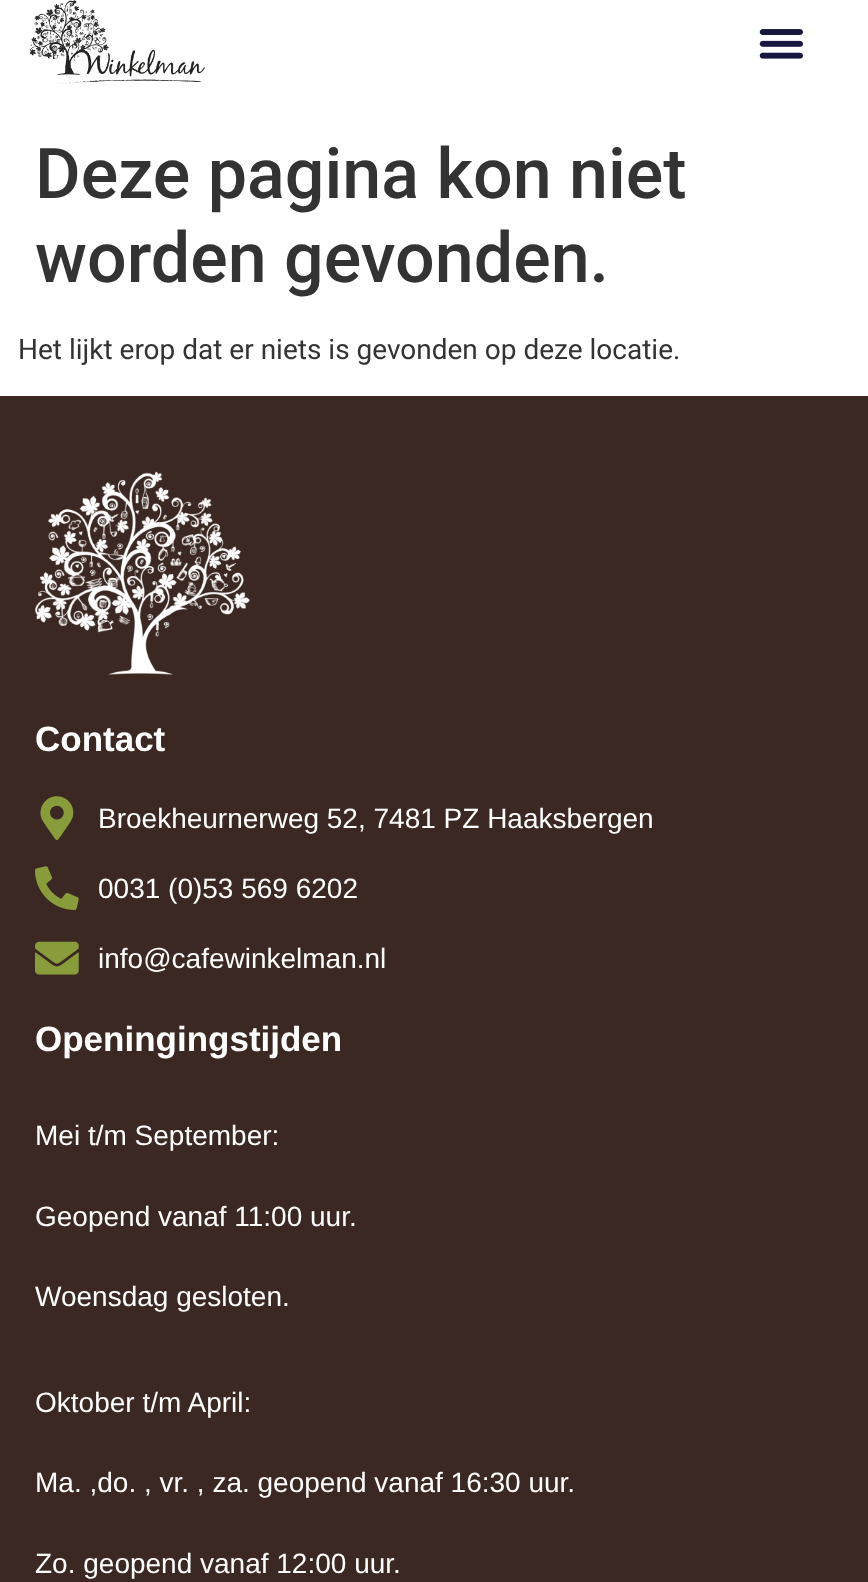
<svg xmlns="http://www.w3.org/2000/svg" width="868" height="1582">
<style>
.a{font:500 70px Roboto;fill:#333}
.b{font:28px Roboto;fill:#333}
.c{font:bold 35px Liberation Sans;fill:#fff}
.d{font:28px Liberation Sans;fill:#fff}
</style>
<rect width="100%" height="100%" fill="#fff"/>
<image href="1.png" x="29" y="0" width="176" height="84"/>
<image href="2.png" x="759" y="29" width="44" height="30"/>
<path fill="#3c2822" d="M0 396h868v1186H0z"/>
<image href="3.png" x="35" y="471" width="216" height="204"/>
<image href="4.png" x="40" y="796" width="34" height="44"/>
<image href="5.png" x="35" y="866" width="44" height="44"/>
<image href="6.png" x="35" y="941" width="44" height="34"/>
<text class="a" x="35" y="198">Deze pagina kon niet</text>
<text class="a" x="35" y="282">worden gevonden.</text>
<text class="b" x="18" y="359">Het lijkt erop dat er niets is gevonden op deze locatie.</text>
<text class="c" x="35" y="751">Contact</text>
<text class="d" x="98" y="828">Broekheurnerweg 52, 7481 PZ Haaksbergen</text>
<text class="d" x="98" y="898">0031 (0)53 569 6202</text>
<text class="d" x="98" y="968">info@cafewinkelman.nl</text>
<text class="c" x="35" y="1051">Openingingstijden</text>
<text class="d" x="35" y="1145">Mei t/m September:</text>
<text class="d" x="35" y="1226">Geopend vanaf 11:00 uur.</text>
<text class="d" x="35" y="1306">Woensdag gesloten.</text>
<text class="d" x="35" y="1412">Oktober t/m April:</text>
<text class="d" x="35" y="1492">Ma. ,do. , vr. , za. geopend vanaf 16:30 uur.</text>
<text class="d" x="35" y="1573">Zo. geopend vanaf 12:00 uur.</text>
</svg>
